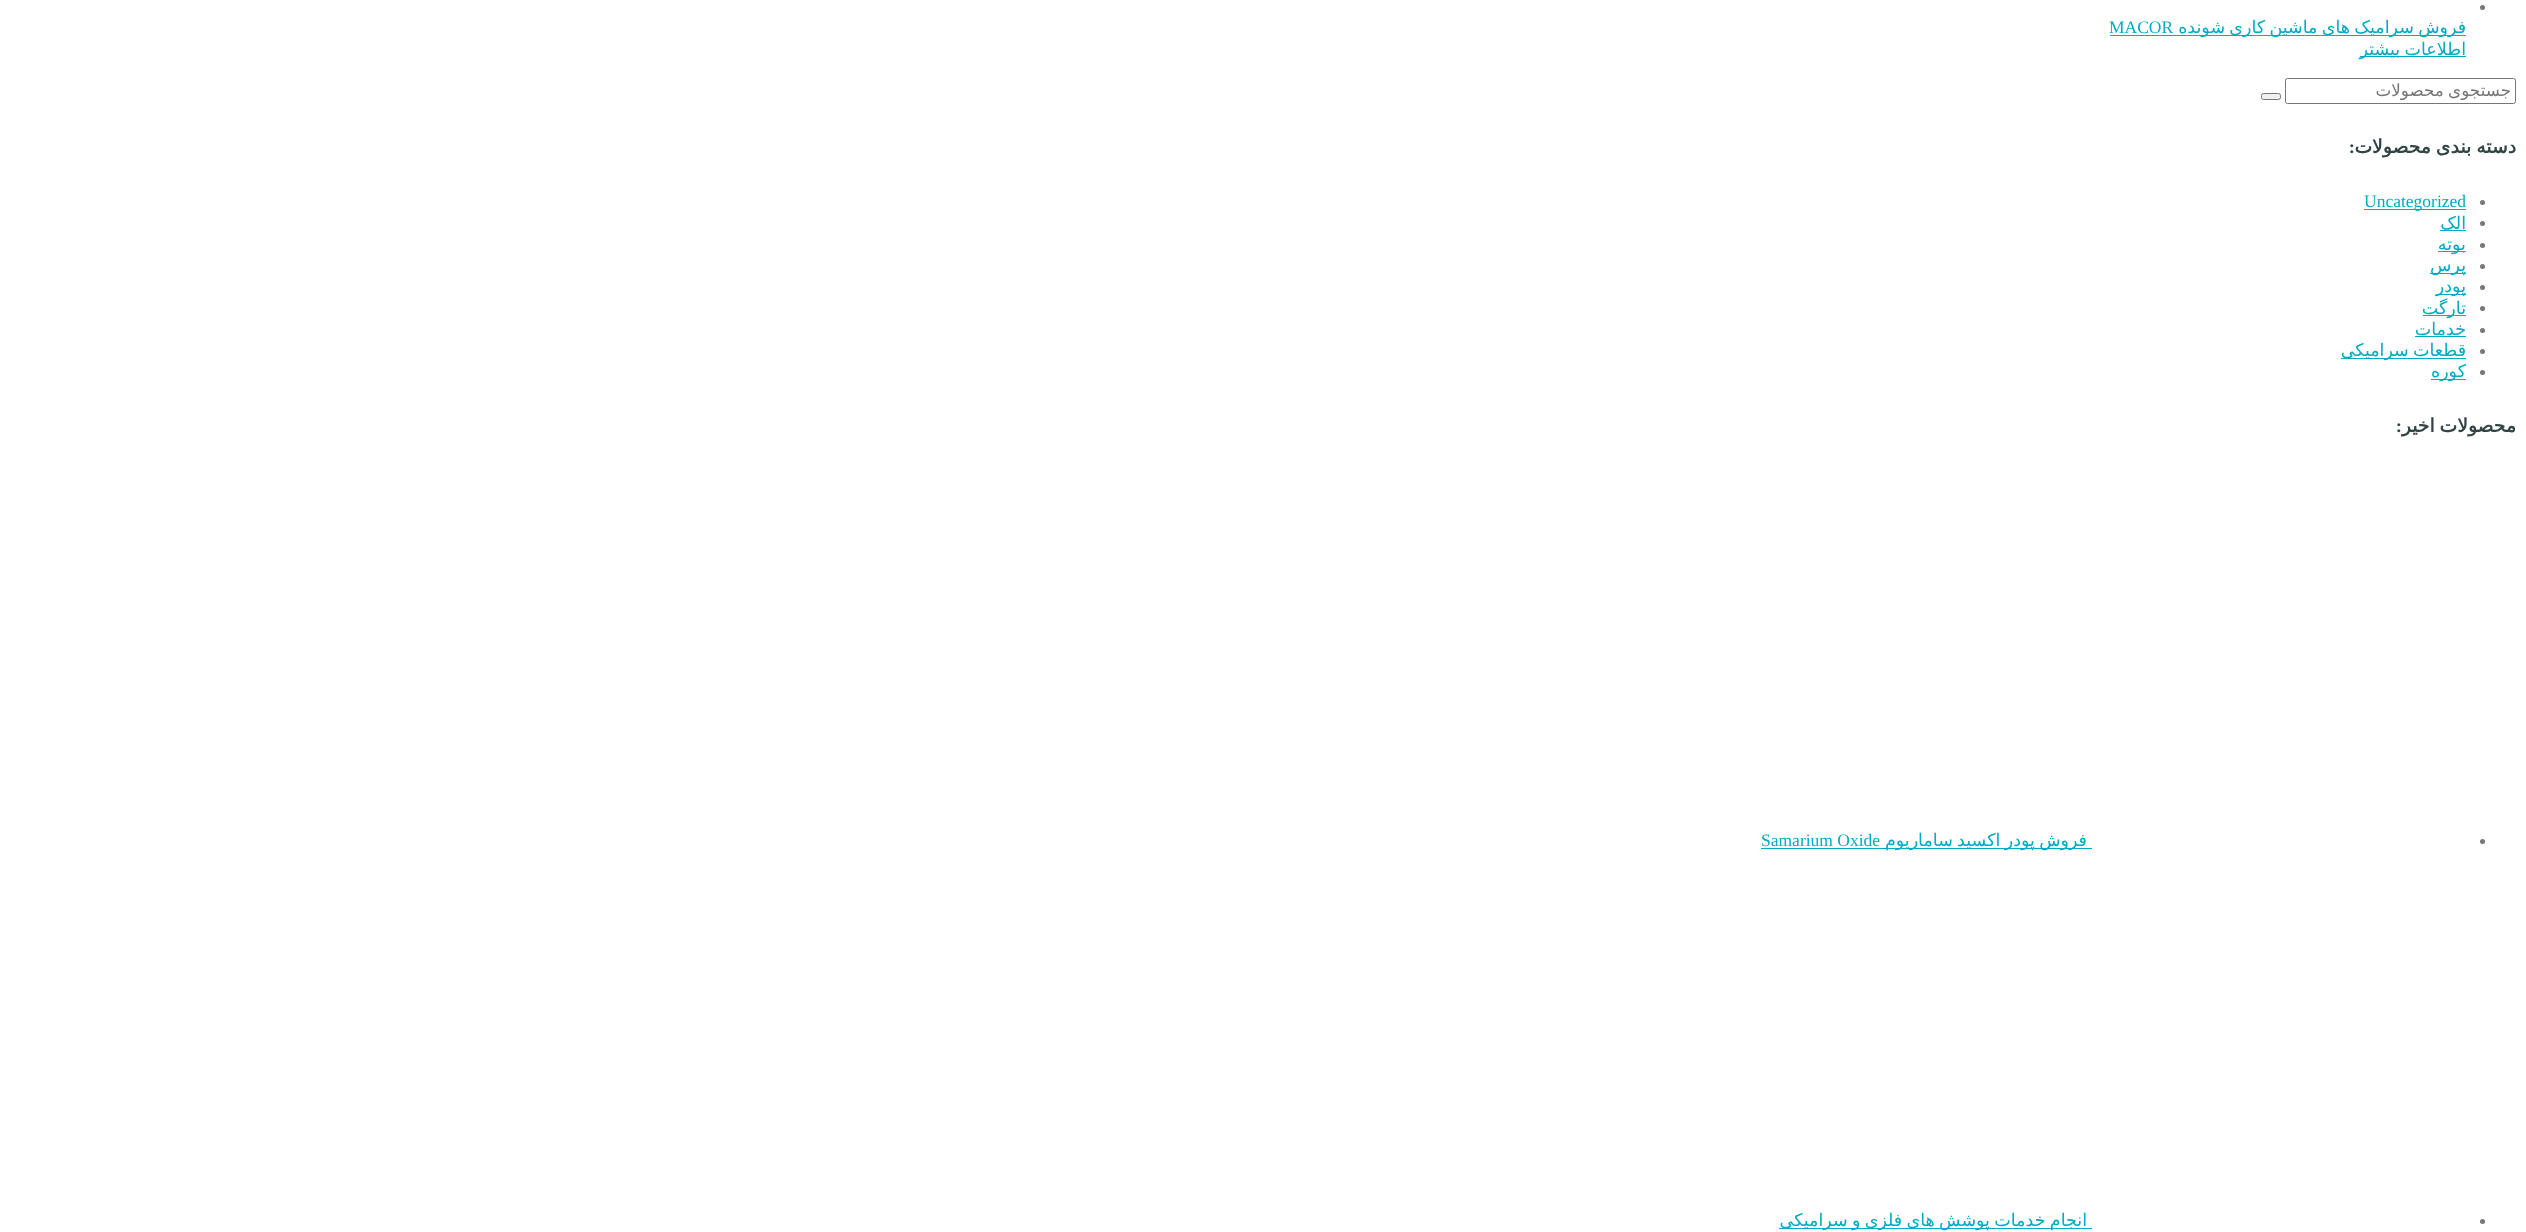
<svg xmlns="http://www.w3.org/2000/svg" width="2526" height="1232">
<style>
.a{font:17.5px DejaVu Sans;direction:rtl;fill:#00acc3}
.b{font:17.5px Liberation Serif;fill:#00acc3}
.c{font:16.75px DejaVu Sans;direction:rtl;fill:#757575}
.d{font:bold 18.75px DejaVu Sans;direction:rtl;fill:#324545}
.e{font:bold 18.75px Liberation Serif;direction:rtl;fill:#324545}
</style>
<rect width="100%" height="100%" fill="#fff"/>
<circle fill="#777" cx="2482.5" cy="7.5" r="2.5"/>
<path fill="#00acc3" d="M2110 35h356v1H2110z"/>
<path fill="#00acc3" d="M2360 56h106v1H2360z"/>
<rect fill="none" stroke="#767676" x="2285.5" y="78.5" width="230" height="25" rx="2"/>
<rect fill="#efefef" stroke="#767676" x="2261.5" y="93.5" width="19" height="6" rx="2"/>
<circle fill="#777" cx="2482.5" cy="202.5" r="2.5"/>
<path fill="#00acc3" d="M2364 209h102v1H2364z"/>
<circle fill="#777" cx="2482.5" cy="223.5" r="2.5"/>
<path fill="#00acc3" d="M2440 230h26v1H2440z"/>
<circle fill="#777" cx="2482.5" cy="245.5" r="2.5"/>
<path fill="#00acc3" d="M2438 251h28v1H2438z"/>
<circle fill="#777" cx="2482.5" cy="266.5" r="2.5"/>
<path fill="#00acc3" d="M2430 273h36v1H2430z"/>
<circle fill="#777" cx="2482.5" cy="287.5" r="2.5"/>
<path fill="#00acc3" d="M2436 294h30v1H2436z"/>
<circle fill="#777" cx="2482.5" cy="308.5" r="2.5"/>
<path fill="#00acc3" d="M2423 315h43v1H2423z"/>
<circle fill="#777" cx="2482.5" cy="330.5" r="2.5"/>
<path fill="#00acc3" d="M2415 336h51v1H2415z"/>
<circle fill="#777" cx="2482.5" cy="351.5" r="2.5"/>
<path fill="#00acc3" d="M2341 358h125v1H2341z"/>
<circle fill="#777" cx="2482.5" cy="372.5" r="2.5"/>
<path fill="#00acc3" d="M2431 379h35v1H2431z"/>
<circle fill="#777" cx="2482.5" cy="841.5" r="2.5"/>
<path fill="#00acc3" d="M2088 848h4v1H2088z"/>
<path fill="#00acc3" d="M1761 848h327v1H1761z"/>
<circle fill="#777" cx="2482.5" cy="1221.5" r="2.5"/>
<path fill="#00acc3" d="M1779 1228h313v1H1779z"/>
<text class="a" x="2466" y="33" word-spacing="-1.25">فروش سرامیک های ماشین کاری شونده</text>
<text class="b" x="2109" y="33">MACOR</text>
<text class="a" x="2466" y="55" word-spacing="-1.25">اطلاعات بیشتر</text>
<text class="c" x="2511" y="96" word-spacing="-1">جستجوی محصولات</text>
<text class="d" x="2516" y="153" word-spacing="-1">دسته بندی محصولات</text>
<text class="e" x="2355" y="153">:</text>
<text class="b" x="2364" y="207">Uncategorized</text>
<text class="a" x="2466" y="229">الک</text>
<text class="a" x="2466" y="250">بوته</text>
<text class="a" x="2466" y="271">پرس</text>
<text class="a" x="2466" y="292">پودر</text>
<text class="a" x="2466" y="314">تارگت</text>
<text class="a" x="2466" y="335">خدمات</text>
<text class="a" x="2466" y="356" word-spacing="-1.25">قطعات سرامیکی</text>
<text class="a" x="2466" y="377">کوره</text>
<text class="d" x="2516" y="432" word-spacing="-1">محصولات اخیر</text>
<text class="e" x="2402" y="432">:</text>
<text class="a" x="2087" y="846" word-spacing="-1.25">فروش پودر اکسید ساماریوم</text>
<text class="b" x="1761" y="846">Samarium Oxide</text>
<text class="a" x="2087" y="1226" word-spacing="-1.25">انجام خدمات پوشش های فلزی و سرامیکی</text>
</svg>
